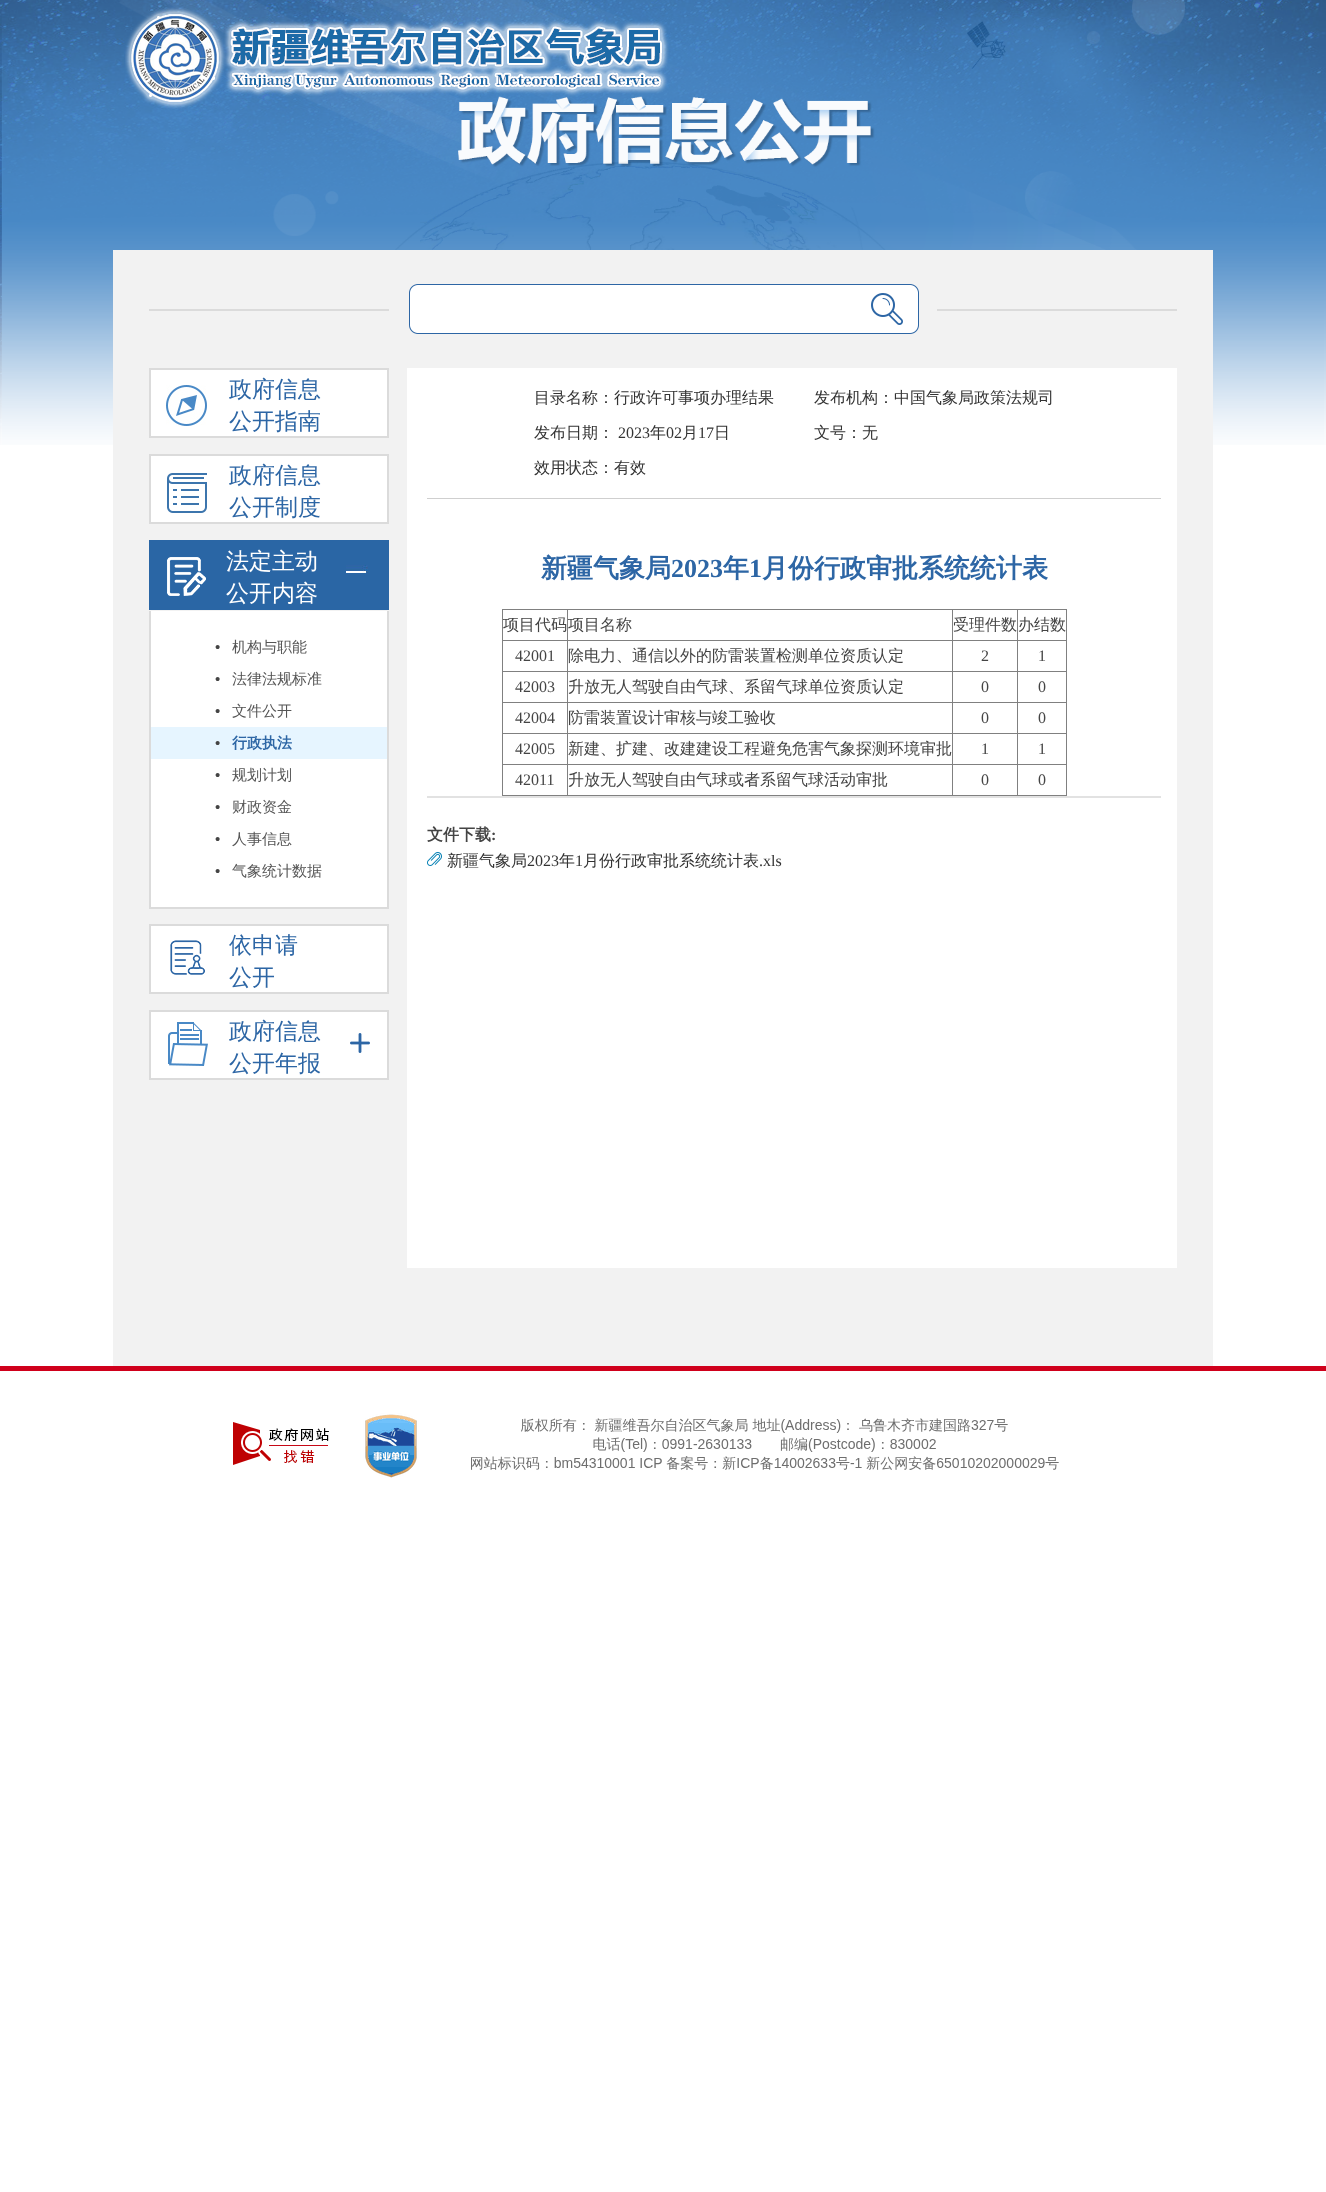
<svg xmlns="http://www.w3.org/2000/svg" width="1326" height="2192">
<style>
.a{font:500 23px WenQuanYi Zen Hei;fill:#2d66a5}
.b{font:500 23px WenQuanYi Zen Hei;fill:#fff}
.c{font:15px Liberation Sans;fill:#444}
.d{font:500 15px WenQuanYi Zen Hei;fill:#555}
.e{font:bold 15px WenQuanYi Zen Hei;fill:#2d66a5}
.f{font:500 16px WenQuanYi Zen Hei;fill:#333}
.g{font:16px Liberation Serif;fill:#333}
.h{font:bold 26px WenQuanYi Zen Hei;fill:#2d66a5}
.i{font:bold 26px Liberation Serif;fill:#2d66a5}
.j{font:500 16px WenQuanYi Zen Hei;fill:#444}
.k{font:16px Liberation Serif;fill:#444}
.l{font:bold 16px WenQuanYi Zen Hei;fill:#444}
.m{font:bold 16px Liberation Serif;fill:#444}
</style>
<rect width="100%" height="100%" fill="#fff"/>
<image href="1.png" x="0" y="0" width="1326" height="445"/>
<image href="2.png" x="125" y="7" width="544" height="102"/>
<path fill="#f2f2f2" d="M113 250h1100v1116H113z"/>
<path fill="#dbdbdb" d="M149 309h240v2H149z"/>
<image href="3.png" x="409" y="284" width="510" height="50"/>
<image href="4.png" x="871" y="293" width="32" height="32"/>
<path fill="#dbdbdb" d="M937 309h240v2H937z"/>
<path fill="#fff" stroke="#dbdbdb" stroke-width="2" d="M150 369h238v68H150z"/>
<image href="5.png" x="166" y="385" width="41" height="41"/>
<path fill="#fff" stroke="#dbdbdb" stroke-width="2" d="M150 455h238v68H150z"/>
<image href="6.png" x="167" y="473" width="40" height="40"/>
<path fill="#2a66a5" d="M149 540h240v70H149z"/>
<image href="7.png" x="167" y="557" width="39" height="39"/>
<image href="8.png" x="346" y="565" width="22" height="8"/>
<path fill="#fff" d="M151 611h236v296H151z"/>
<path fill="#dbdbdb" d="M387 611h2v298H387z"/>
<path fill="#dbdbdb" d="M149 907h240v2H149z"/>
<path fill="#dbdbdb" d="M149 611h2v298H149z"/>
<path fill="#e6f5ff" d="M151 727h236v32H151z"/>
<path fill="#fff" stroke="#dbdbdb" stroke-width="2" d="M150 925h238v68H150z"/>
<image href="9.png" x="170" y="940" width="35" height="35"/>
<path fill="#fff" stroke="#dbdbdb" stroke-width="2" d="M150 1011h238v68H150z"/>
<image href="10.png" x="168" y="1022" width="40" height="44"/>
<image href="11.png" x="350" y="1033" width="20" height="20"/>
<path fill="#fff" d="M407 368h770v900H407z"/>
<path fill="#cfcfcf" d="M427 498h734v1H427z"/>
<path fill="#808080" d="M1066 609h1v187H1066z"/>
<path fill="#808080" d="M502 795h565v1H502z"/>
<path fill="#808080" d="M502 609h564v1H502z"/>
<path fill="#808080" d="M502 609h1v31H502z"/>
<path fill="#808080" d="M567 609h1v31H567z"/>
<path fill="#808080" d="M952 609h1v31H952z"/>
<path fill="#808080" d="M1017 609h1v31H1017z"/>
<path fill="#808080" d="M502 640h564v1H502z"/>
<path fill="#808080" d="M502 640h1v31H502z"/>
<path fill="#808080" d="M567 640h1v31H567z"/>
<path fill="#808080" d="M952 640h1v31H952z"/>
<path fill="#808080" d="M1017 640h1v31H1017z"/>
<path fill="#808080" d="M502 671h564v1H502z"/>
<path fill="#808080" d="M502 671h1v31H502z"/>
<path fill="#808080" d="M567 671h1v31H567z"/>
<path fill="#808080" d="M952 671h1v31H952z"/>
<path fill="#808080" d="M1017 671h1v31H1017z"/>
<path fill="#808080" d="M502 702h564v1H502z"/>
<path fill="#808080" d="M502 702h1v31H502z"/>
<path fill="#808080" d="M567 702h1v31H567z"/>
<path fill="#808080" d="M952 702h1v31H952z"/>
<path fill="#808080" d="M1017 702h1v31H1017z"/>
<path fill="#808080" d="M502 733h564v1H502z"/>
<path fill="#808080" d="M502 733h1v31H502z"/>
<path fill="#808080" d="M567 733h1v31H567z"/>
<path fill="#808080" d="M952 733h1v31H952z"/>
<path fill="#808080" d="M1017 733h1v31H1017z"/>
<path fill="#808080" d="M502 764h564v1H502z"/>
<path fill="#808080" d="M502 764h1v31H502z"/>
<path fill="#808080" d="M567 764h1v31H567z"/>
<path fill="#808080" d="M952 764h1v31H952z"/>
<path fill="#808080" d="M1017 764h1v31H1017z"/>
<path fill="#e2e2e2" d="M427 796h734v2H427z"/>
<image href="12.png" x="427" y="852" width="15" height="14"/>
<image href="13.png" x="0" y="1366" width="1326" height="112"/>
<text class="a" x="229" y="397">政府信息</text>
<text class="a" x="229" y="429">公开指南</text>
<text class="a" x="229" y="483">政府信息</text>
<text class="a" x="229" y="515">公开制度</text>
<text class="b" x="226" y="569">法定主动</text>
<text class="b" x="226" y="601">公开内容</text>
<text class="c" x="215" y="652">•</text>
<text class="d" x="232" y="652">机构与职能</text>
<text class="c" x="215" y="684">•</text>
<text class="d" x="232" y="684">法律法规标准</text>
<text class="c" x="215" y="716">•</text>
<text class="d" x="232" y="716">文件公开</text>
<text class="c" x="215" y="748">•</text>
<text class="e" x="232" y="748">行政执法</text>
<text class="c" x="215" y="780">•</text>
<text class="d" x="232" y="780">规划计划</text>
<text class="c" x="215" y="812">•</text>
<text class="d" x="232" y="812">财政资金</text>
<text class="c" x="215" y="844">•</text>
<text class="d" x="232" y="844">人事信息</text>
<text class="c" x="215" y="876">•</text>
<text class="d" x="232" y="876">气象统计数据</text>
<text class="a" x="229" y="953">依申请</text>
<text class="a" x="229" y="985">公开</text>
<text class="a" x="229" y="1039">政府信息</text>
<text class="a" x="229" y="1071">公开年报</text>
<text class="f" x="534" y="403">目录名称：行政许可事项办理结果</text>
<text class="f" x="814" y="403">发布机构：中国气象局政策法规司</text>
<text class="f" x="534" y="438">发布日期：</text>
<text class="g" x="618" y="438">2023</text>
<text class="f" x="650" y="438">年</text>
<text class="g" x="666" y="438">02</text>
<text class="f" x="682" y="438">月</text>
<text class="g" x="698" y="438">17</text>
<text class="f" x="714" y="438">日</text>
<text class="f" x="814" y="438">文号：无</text>
<text class="f" x="534" y="473">效用状态：有效</text>
<text class="h" x="541" y="577">新疆气象局</text>
<text class="i" x="671" y="577">2023</text>
<text class="h" x="723" y="577">年</text>
<text class="i" x="749" y="577">1</text>
<text class="h" x="762" y="577">月份行政审批系统统计表</text>
<text class="j" x="503" y="630">项目代码</text>
<text class="j" x="568" y="630">项目名称</text>
<text class="j" x="953" y="630">受理件数</text>
<text class="j" x="1018" y="630">办结数</text>
<text class="k" x="515" y="661">42001</text>
<text class="j" x="568" y="661">除电力、通信以外的防雷装置检测单位资质认定</text>
<text class="k" x="981" y="661">2</text>
<text class="k" x="1038" y="661">1</text>
<text class="k" x="515" y="692">42003</text>
<text class="j" x="568" y="692">升放无人驾驶自由气球、系留气球单位资质认定</text>
<text class="k" x="981" y="692">0</text>
<text class="k" x="1038" y="692">0</text>
<text class="k" x="515" y="723">42004</text>
<text class="j" x="568" y="723">防雷装置设计审核与竣工验收</text>
<text class="k" x="981" y="723">0</text>
<text class="k" x="1038" y="723">0</text>
<text class="k" x="515" y="754">42005</text>
<text class="j" x="568" y="754">新建、扩建、改建建设工程避免危害气象探测环境审批</text>
<text class="k" x="981" y="754">1</text>
<text class="k" x="1038" y="754">1</text>
<text class="k" x="515" y="785">42011</text>
<text class="j" x="568" y="785">升放无人驾驶自由气球或者系留气球活动审批</text>
<text class="k" x="981" y="785">0</text>
<text class="k" x="1038" y="785">0</text>
<text class="l" x="427" y="840">文件下载</text>
<text class="m" x="491" y="840">:</text>
<text class="f" x="447" y="866">新疆气象局</text>
<text class="g" x="527" y="866">2023</text>
<text class="f" x="559" y="866">年</text>
<text class="g" x="575" y="866">1</text>
<text class="f" x="583" y="866">月份行政审批系统统计表</text>
<text class="g" x="759" y="866">.xls</text>
</svg>
